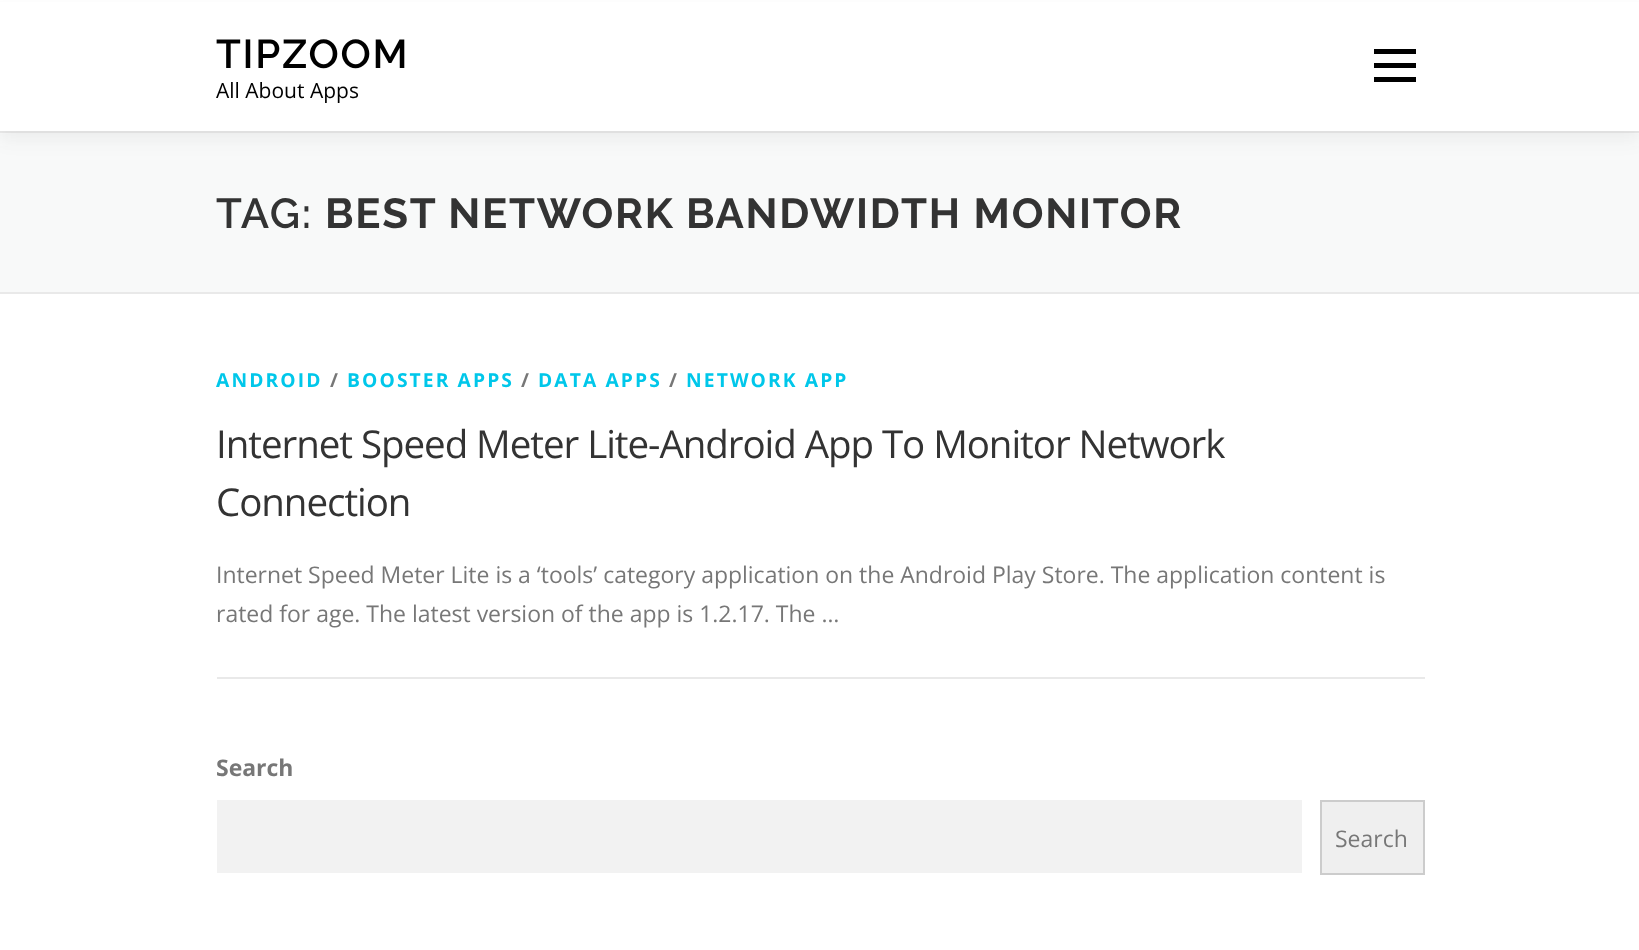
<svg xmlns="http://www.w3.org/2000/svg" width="1639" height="950">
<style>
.a{font:600 40.25px Raleway;letter-spacing:1.75px;fill:#000}
.b{font:21px Open Sans;fill:#000}
.c{font:600 42px Raleway;letter-spacing:1.75px;fill:#333}
.d{font:bold 42px Raleway;letter-spacing:1.75px;fill:#333}
.e{font:bold 19.25px Open Sans;letter-spacing:2.1px;fill:#00c7ea}
.f{font:bold 19.25px Open Sans;letter-spacing:2.1px;fill:#777}
.g{font:38.5px Open Sans;letter-spacing:-1.05px;fill:#333}
.h{font:22.97px Open Sans;fill:#777}
.i{font:bold 22.97px Open Sans;fill:#777}
</style>
<rect width="100%" height="100%" fill="#fff"/>
<path fill="#f8f9f9" d="M0 133h1639v159H0z"/>
<path fill="#e9e9e9" d="M0 131h1639v2H0z"/>
<path fill="#3232320f" filter="blur(9px)" d="M0 9h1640v131H0z"/>
<path fill="#fff" d="M0 2h1639v129H0z"/>
<path fill="#000" d="M1374 63h42v5H1374z"/>
<path fill="#000" d="M1374 49h42v5H1374z"/>
<path fill="#000" d="M1374 77h42v5H1374z"/>
<path fill="#e9e9e9" d="M0 292h1639v2H0z"/>
<path fill="#e9e9e9" d="M217 677h1208v2H217z"/>
<path fill="#f2f2f2" d="M217 800h1085v73H217z"/>
<path fill="#efefef" stroke="#ccc" stroke-width="2" d="M1321 801h103v73H1321z"/>
<text class="a" x="216" y="68">TIPZOOM</text>
<text class="b" x="216" y="98">All About Apps</text>
<text class="c" x="216" y="228">TAG:</text>
<text class="d" x="325" y="228">BEST NETWORK BANDWIDTH MONITOR</text>
<text class="e" x="216" y="387">ANDROID</text>
<text class="f" x="330" y="387">/</text>
<text class="e" x="347" y="387">BOOSTER APPS</text>
<text class="f" x="521" y="387">/</text>
<text class="e" x="538" y="387">DATA APPS</text>
<text class="f" x="669" y="387">/</text>
<text class="e" x="686" y="387">NETWORK APP</text>
<text class="g" x="216" y="458">Internet Speed Meter Lite-Android App To Monitor Network</text>
<text class="g" x="216" y="516">Connection</text>
<text class="h" x="216" y="583">Internet Speed Meter Lite is a ‘tools’ category application on the Android Play Store. The application content is</text>
<text class="h" x="216" y="622">rated for age. The latest version of the app is 1.2.17. The …</text>
<text class="i" x="216" y="776">Search</text>
<text class="h" x="1335" y="847">Search</text>
</svg>
